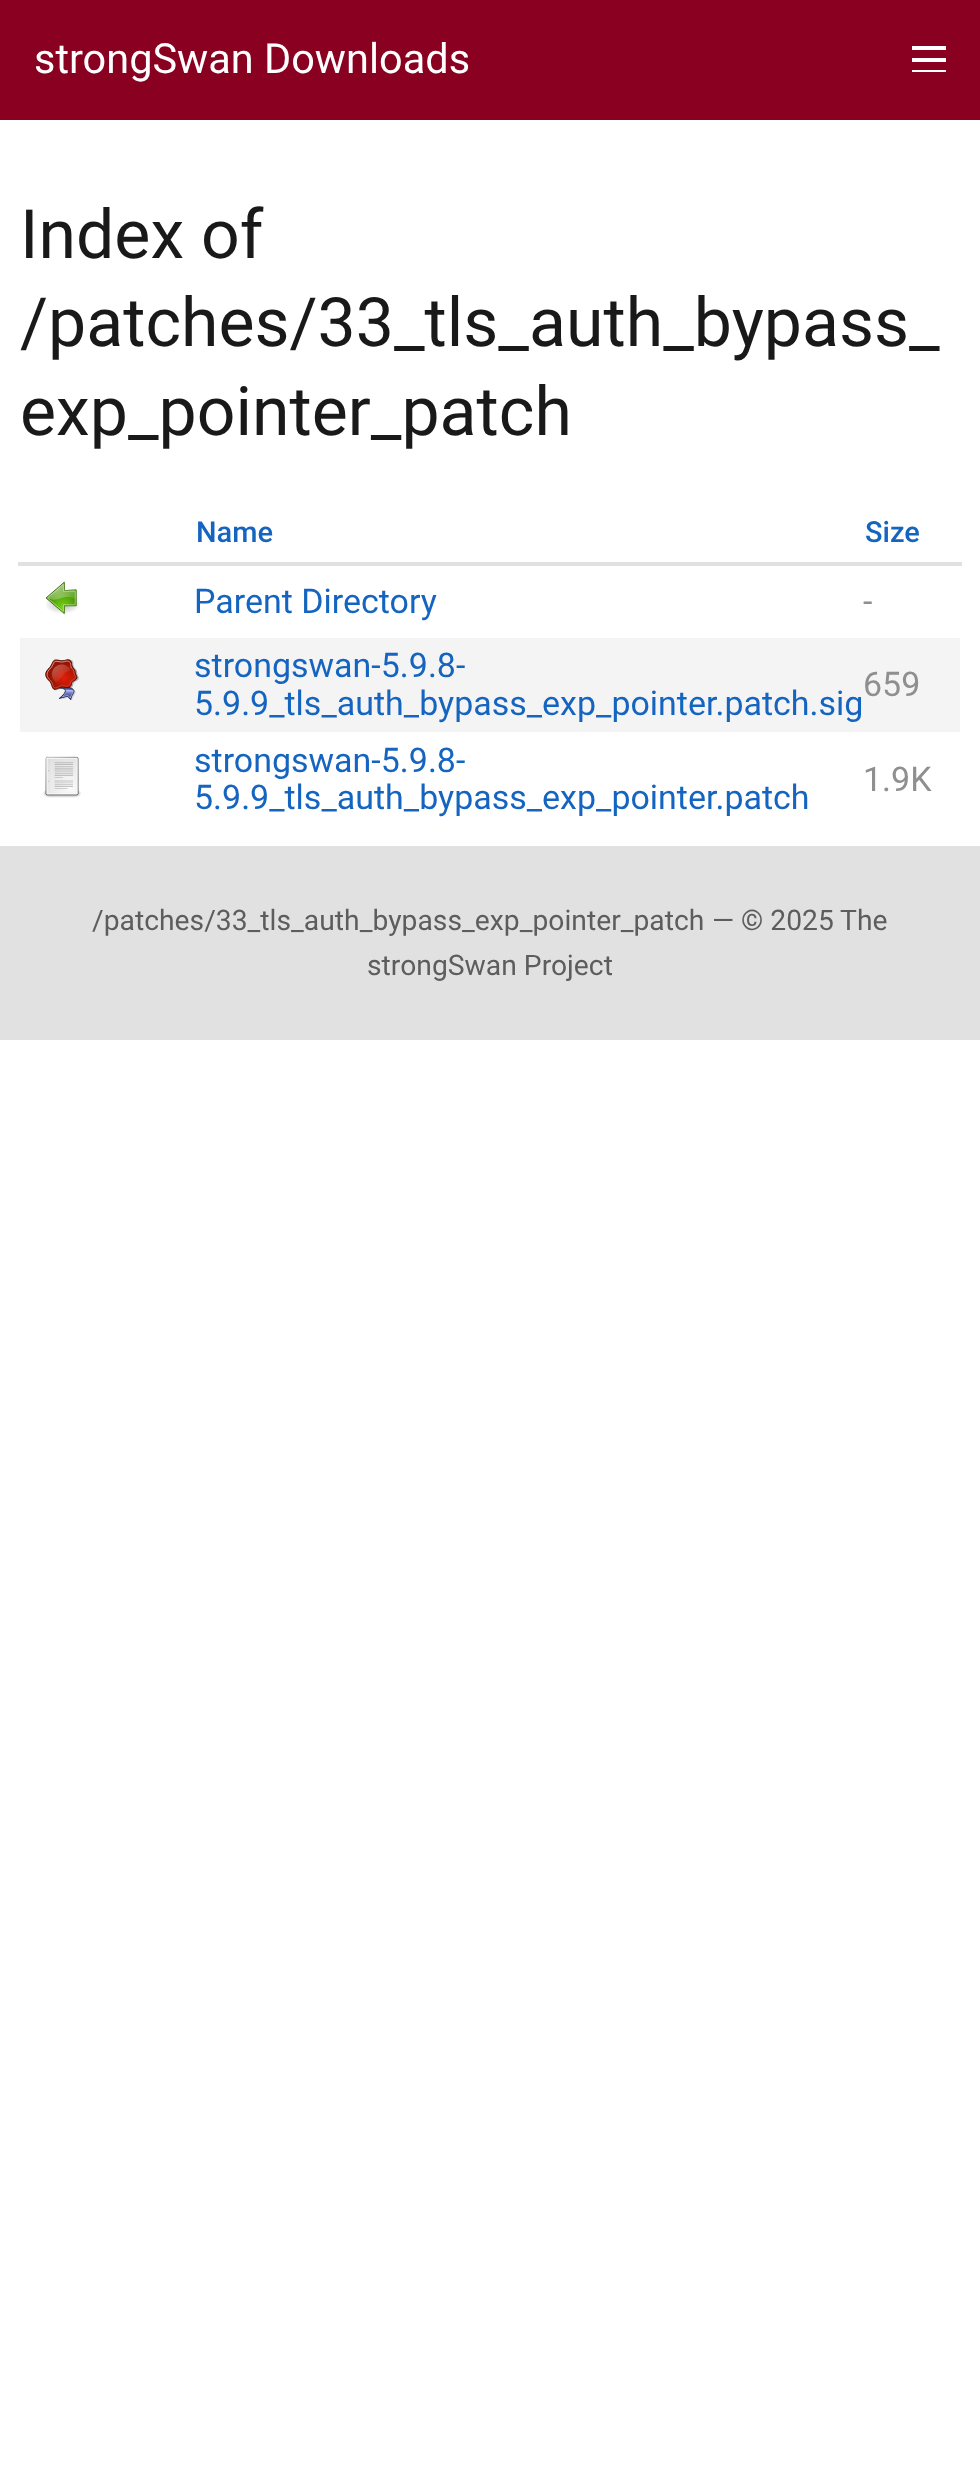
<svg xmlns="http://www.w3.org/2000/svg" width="980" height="2471">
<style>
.a{font:41.5px Roboto;fill:#fff}
.b{font:68px Roboto;fill:#191919}
.c{font:500 29px Roboto;fill:#1565c0}
.d{font:34px Roboto;fill:#1565c0}
.e{font:34px Roboto;fill:#8f8f8f}
.f{font:28.3px Roboto;fill:#5d5d5d}
</style>
<rect width="100%" height="100%" fill="#fff"/>
<path fill="#8a0020" d="M0 0h980v120H0z"/>
<path fill="#fff" d="M912 46h34v4H912z"/>
<path fill="#fff" d="M912 58h34v4H912z"/>
<path fill="#fff" d="M912 70h34v2H912z"/>
<path fill="#e1e1e1" d="M18 562h944v4H18z"/>
<image href="1.png" x="46" y="581" width="33" height="34"/>
<path fill="#f4f4f4" d="M20 638h940v94H20z"/>
<image href="2.png" x="45" y="659" width="34" height="41"/>
<image href="3.png" x="43" y="756" width="38" height="42"/>
<path fill="#e1e1e1" d="M0 846h980v194H0z"/>
<text class="a" x="34" y="73">strongSwan Downloads</text>
<text class="b" x="20" y="258">Index of</text>
<text class="b" x="20" y="346">/patches/33_tls_auth_bypass_</text>
<text class="b" x="20" y="435">exp_pointer_patch</text>
<text class="c" x="196" y="542">Name</text>
<text class="c" x="865" y="542">Size</text>
<text class="d" x="194" y="613">Parent Directory</text>
<text class="e" x="863" y="613">-</text>
<text class="d" x="194" y="677">strongswan-5.9.8-</text>
<text class="d" x="194" y="715">5.9.9_tls_auth_bypass_exp_pointer.patch.sig</text>
<text class="e" x="863" y="696">659</text>
<text class="d" x="194" y="772">strongswan-5.9.8-</text>
<text class="d" x="194" y="809">5.9.9_tls_auth_bypass_exp_pointer.patch</text>
<text class="e" x="863" y="791">1.9K</text>
<text class="f" x="92" y="930">/patches/33_tls_auth_bypass_exp_pointer_patch</text>
<text class="f" x="712" y="930">— © 2025</text>
<text class="f" x="840" y="930">The</text>
<text class="f" x="367" y="975">strongSwan Project</text>
</svg>
